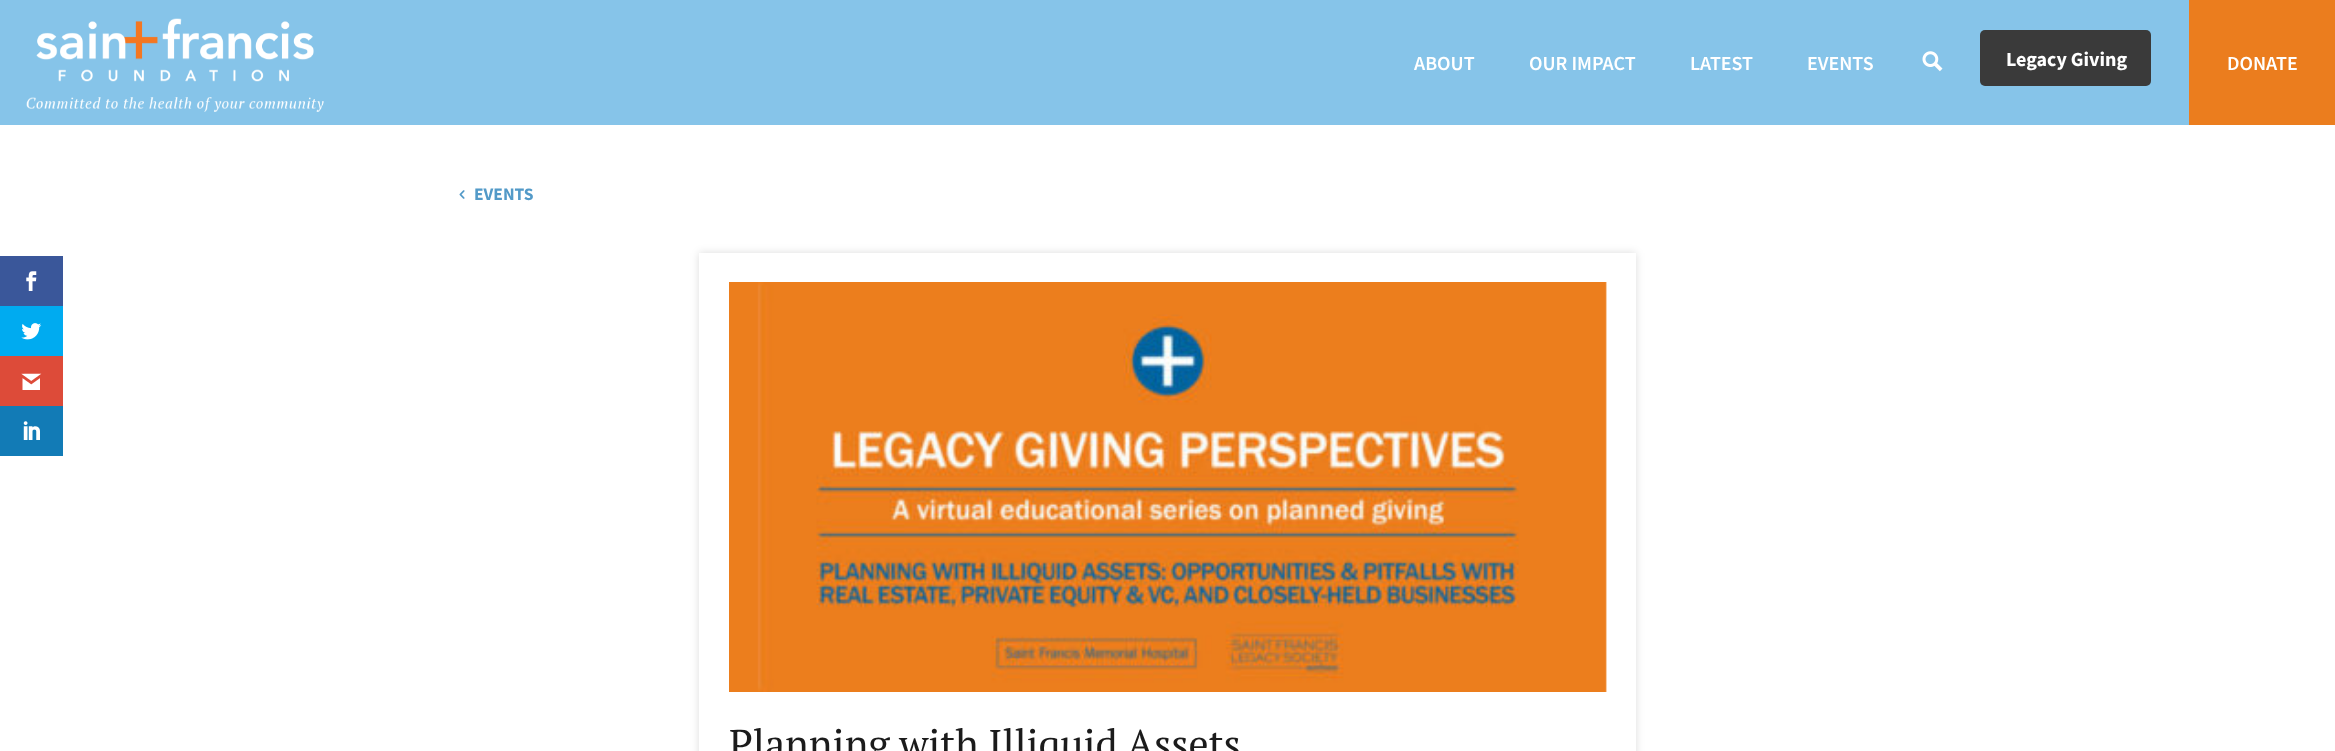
<svg xmlns="http://www.w3.org/2000/svg" width="2335" height="751">
<style>
.a{font:600 20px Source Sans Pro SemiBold;fill:#fff}
.b{font:bold 20px Source Sans Pro;fill:#fff}
.c{font:bold 17.5px Source Sans Pro;fill:#539ac8}
.d{font:40px PT Serif;fill:#1b1b1b}
</style>
<defs>
<clipPath id="clip1"><path d="M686 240h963v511h-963zm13 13h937v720h-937z" clip-rule="evenodd"/></clipPath>
</defs>
<rect width="100%" height="100%" fill="#fff"/>
<path fill="#86c4e9" d="M0 0h2189v125H0z"/>
<image href="1.png" x="26" y="18" width="298" height="94"/>
<image href="2.png" x="1922" y="51" width="21" height="21"/>
<rect fill="#3a3a3a" x="1980" y="30" width="171" height="56" rx="5"/>
<path fill="#eb7d1e" d="M2189 0h146v125H2189z"/>
<path fill="#3a579a" d="M0 256h63v50H0z"/>
<image href="3.png" x="26" y="271" width="11" height="20"/>
<path fill="#00abf0" d="M0 306h63v50H0z"/>
<image href="4.png" x="21" y="323" width="21" height="17"/>
<path fill="#dd4b39" d="M0 356h63v50H0z"/>
<image href="5.png" x="21" y="373" width="21" height="17"/>
<path fill="#127bb6" d="M0 406h63v50H0z"/>
<image href="6.png" x="23" y="421" width="17" height="19"/>
<image href="7.png" x="459" y="190" width="6" height="9"/>
<g clip-path="url(#clip1)">
<path fill="#00000024" filter="blur(4px)" d="M699 253h937v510H699z"/>
</g>
<image href="8.png" x="729" y="282" width="878" height="410"/>
<text class="a" x="1414" y="70">ABOUT</text>
<text class="a" x="1529" y="70">OUR IMPACT</text>
<text class="a" x="1690" y="70">LATEST</text>
<text class="a" x="1807" y="70">EVENTS</text>
<text class="b" x="2006" y="66">Legacy Giving</text>
<text class="a" x="2227" y="70">DONATE</text>
<text class="c" x="474" y="200">EVENTS</text>
<text class="d" x="729" y="758">Planning with Illiquid Assets</text>
</svg>
